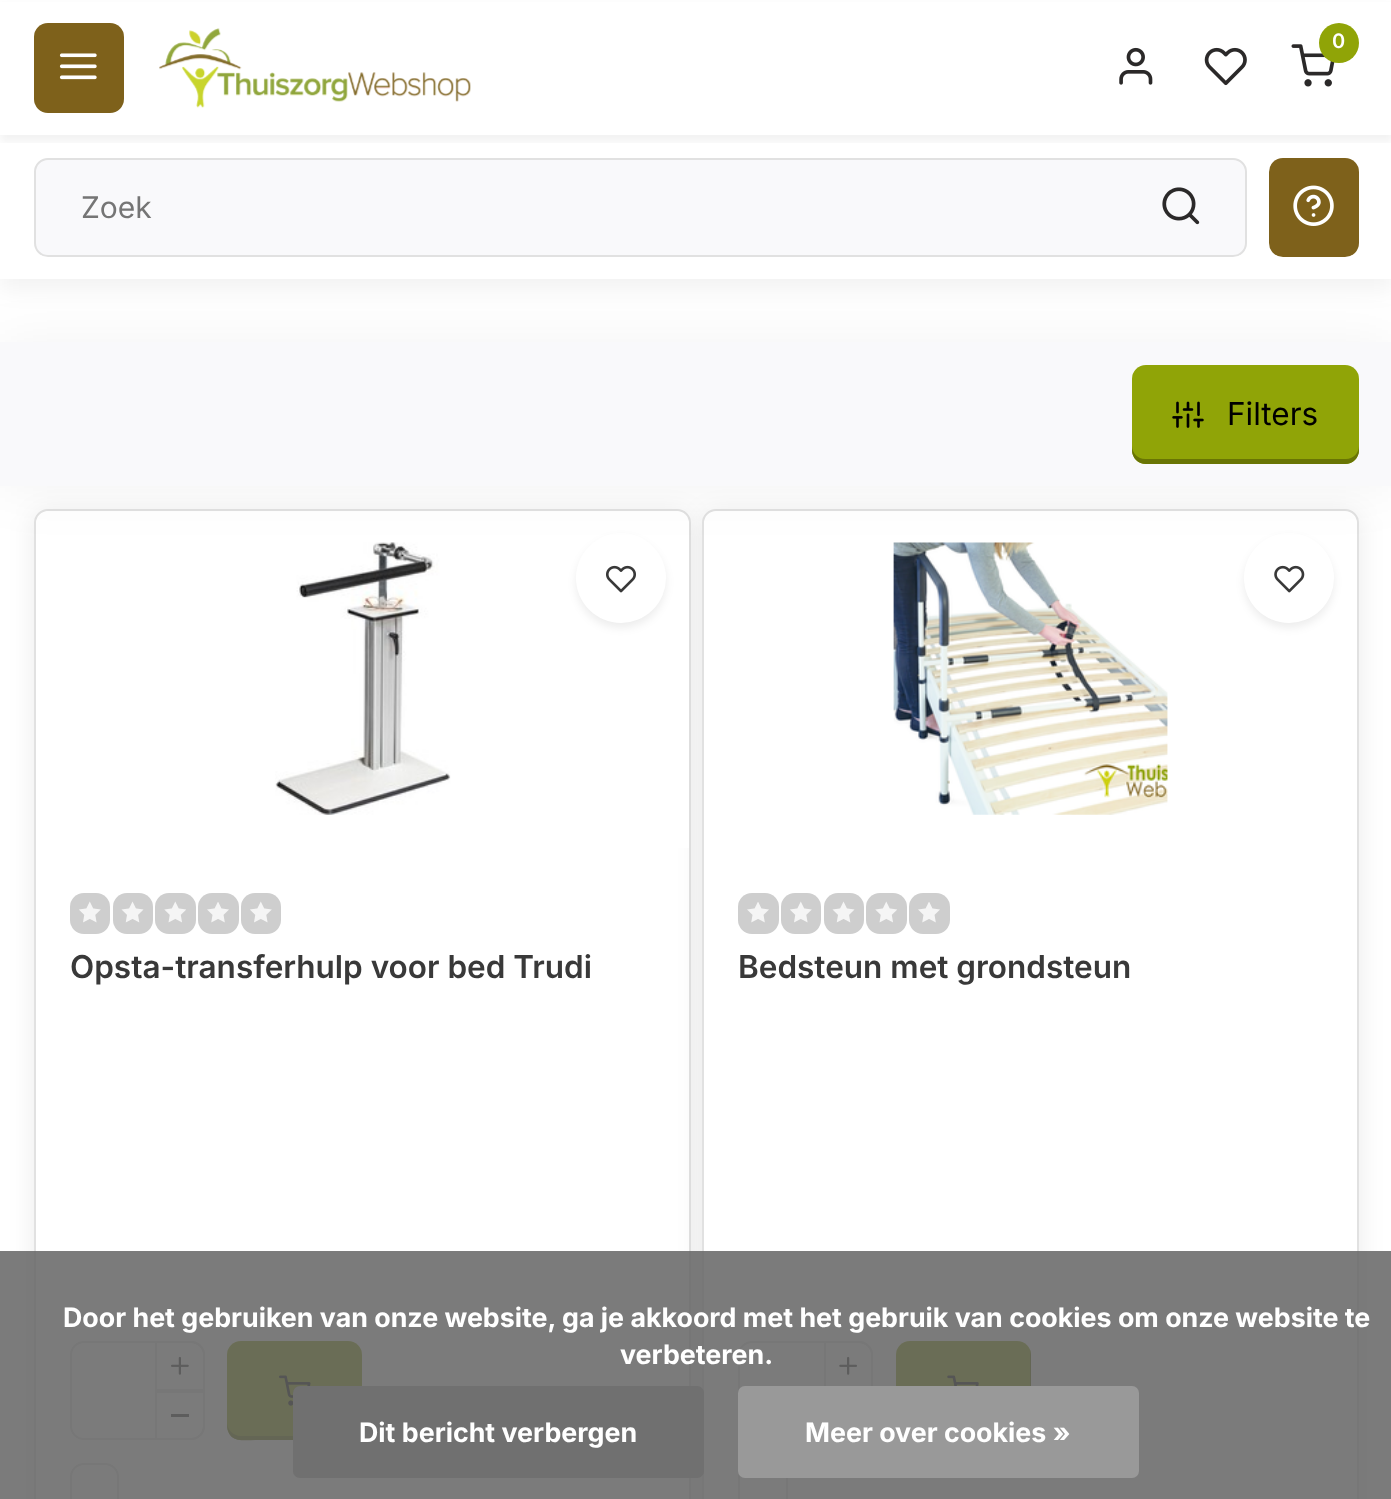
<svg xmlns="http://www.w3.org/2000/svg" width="1391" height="1499">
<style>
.a{font:600 20px Inter;fill:#fff}
.b{font:30px Inter;fill:#757575}
.c{font:31.5px Inter;fill:#000}
.d{font:600 31.5px Inter;fill:#393939}
.e{font:bold 26.8px Inter;fill:#fff}
</style>
<defs>
<clipPath id="clip1"><path d="M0 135h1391v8H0z"/></clipPath>
</defs>
<rect width="100%" height="100%" fill="#fff"/>
<path fill="#0000000d" filter="blur(11px)" d="M0 11h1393v279H0z"/>
<rect fill="#00000014" filter="blur(13.5px)" x="34" y="513" width="657" height="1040" rx="14"/>
<rect fill="#fff" stroke="#e1e1e1" stroke-width="2" x="35" y="510" width="655" height="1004" rx="13"/>
<rect fill="#00000014" filter="blur(13.5px)" x="702" y="513" width="657" height="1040" rx="14"/>
<path fill="#fff" d="M50 511h625c7.5 0 14 6.5 14 14v323h-653v-323c0-7.5 6.5-14 14-14z"/>
<image href="9.png" x="275" y="542" width="176" height="273"/>
<rect fill="#00000012" filter="blur(4.5px)" x="576" y="538" width="90" height="90" rx="45"/>
<circle fill="#fff" cx="621" cy="578" r="45"/>
<image href="10.png" x="606" y="565" width="30" height="28"/>
<rect fill="#fff" stroke="#e1e1e1" stroke-width="2" x="703" y="510" width="655" height="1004" rx="13"/>
<image href="17.png" x="893" y="542" width="275" height="273"/>
<rect fill="#00000012" filter="blur(4.5px)" x="1244" y="538" width="90" height="90" rx="45"/>
<circle fill="#fff" cx="1289" cy="578" r="45"/>
<image href="18.png" x="1274" y="565" width="31" height="28"/>
<path fill="#0000000d" filter="blur(28px)" d="M0 344h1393v144H0z"/>
<path fill="#fff" d="M0 2h1391v277H0z"/>
<g clip-path="url(#clip1)">
<path fill="#0000000d" filter="blur(4.5px)" d="M0 7h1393v135H0z"/>
</g>
<rect fill="#7e611b" x="34" y="23" width="90" height="90" rx="14"/>
<image href="1.png" x="59" y="53" width="38" height="27"/>
<image href="2.png" x="159" y="28" width="312" height="80"/>
<image href="3.png" x="1291" y="44" width="44" height="43"/>
<circle fill="#90a407" cx="1339" cy="43" r="20"/>
<image href="4.png" x="1119" y="47" width="34" height="38"/>
<image href="5.png" x="1204" y="47" width="43" height="39"/>
<rect fill="#f9f9fb" stroke="#e1e1e1" stroke-width="2" x="35" y="159" width="1211" height="97" rx="13"/>
<image href="6.png" x="1162" y="187" width="38" height="38"/>
<rect fill="#7e611b" x="1269" y="158" width="90" height="99" rx="14"/>
<image href="7.png" x="1293" y="185" width="41" height="41"/>
<path fill="#f9f9fb" d="M0 342h1391v144H0z"/>
<rect fill="#90a407" x="1132" y="365" width="227" height="99" rx="14"/>
<path fill="#697504" d="M1132 446v4c0 8 6 14 14 14h199c8 0 14-6 14-14v-4c0 7-6 13-13 13h-201c-7 0-13-6-13-13z"/>
<image href="8.png" x="1172" y="401" width="32" height="27"/>
<rect fill="#cecece" x="70" y="893" width="40" height="41" rx="14"/>
<image href="11.png" x="79" y="901" width="22" height="22"/>
<rect fill="#cecece" x="113" y="893" width="40" height="41" rx="14"/>
<image href="12.png" x="121" y="901" width="23" height="22"/>
<rect fill="#cecece" x="155" y="893" width="41" height="41" rx="14"/>
<image href="13.png" x="164" y="901" width="22" height="22"/>
<rect fill="#cecece" x="198" y="893" width="41" height="41" rx="14"/>
<image href="14.png" x="207" y="902" width="22" height="21"/>
<rect fill="#cecece" x="241" y="893" width="40" height="41" rx="14"/>
<image href="11.png" x="250" y="901" width="22" height="22"/>
<rect fill="none" stroke="#e1e1e1" stroke-width="2" x="71" y="1342" width="133" height="97" rx="13"/>
<path fill="none" stroke="#e1e1e1" stroke-width="2" d="M156 1342h35c7 0 13 6 13 13v35h-48z"/>
<image href="15.png" x="171" y="1356" width="18" height="19"/>
<path fill="none" stroke="#e1e1e1" stroke-width="2" d="M156 1392h48v34c0 7-6 13-13 13h-35z"/>
<path fill="#393939" d="M171 1414h18v3H171z"/>
<rect fill="#90a407" x="227" y="1341" width="135" height="99" rx="14"/>
<path fill="#697504" d="M227 1422c0 7 6 14 14 14h108c7 0 13-7 13-14c0 22-14 18-32 18h-71c-18 0-32 4-32-18z"/>
<image href="16.png" x="279" y="1375" width="32" height="31"/>
<rect fill="none" stroke="#e1e1e1" stroke-width="2" x="71" y="1464" width="47" height="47" rx="13"/>
<rect fill="#cecece" x="738" y="893" width="41" height="41" rx="14"/>
<image href="14.png" x="747" y="902" width="22" height="21"/>
<rect fill="#cecece" x="781" y="893" width="40" height="41" rx="14"/>
<image href="11.png" x="790" y="901" width="22" height="22"/>
<rect fill="#cecece" x="824" y="893" width="40" height="41" rx="14"/>
<image href="12.png" x="832" y="901" width="23" height="22"/>
<rect fill="#cecece" x="866" y="893" width="41" height="41" rx="14"/>
<image href="13.png" x="875" y="901" width="22" height="22"/>
<rect fill="#cecece" x="909" y="893" width="41" height="41" rx="14"/>
<image href="14.png" x="918" y="902" width="22" height="21"/>
<rect fill="none" stroke="#e1e1e1" stroke-width="2" x="739" y="1342" width="133" height="97" rx="13"/>
<path fill="none" stroke="#e1e1e1" stroke-width="2" d="M825 1342h34c7 0 13 6 13 13v35h-47z"/>
<image href="19.png" x="839" y="1356" width="18" height="19"/>
<rect fill="#90a407" x="896" y="1341" width="135" height="99" rx="14"/>
<path fill="#697504" d="M1030 1350l1 5v71c0 8-6 14-14 14h-107c-8 0-14-6-14-14v-4c0 7 6 14 13 14h108c7 0 13-7 13-14z"/>
<image href="20.png" x="947" y="1375" width="32" height="11"/>
<rect fill="none" stroke="#e1e1e1" stroke-width="2" x="739" y="1464" width="48" height="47" rx="13"/>
<path fill="#646464d9" d="M0 1251h1391v248H0z"/>
<rect fill="#707070" x="293" y="1386" width="411" height="92" rx="7"/>
<rect fill="#999" x="738" y="1386" width="401" height="92" rx="7"/>
<text class="a" x="1332" y="48">0</text>
<text class="b" x="81" y="218">Zoek</text>
<text class="c" x="1227" y="425">Filters</text>
<text class="d" x="70" y="978">Opsta-transferhulp voor bed Trudi</text>
<text class="d" x="738" y="978">Bedsteun met grondsteun</text>
<text class="e" x="63" y="1327">Door het gebruiken van onze website, ga je akkoord met het gebruik van cookies om onze website te</text>
<text class="e" x="620" y="1364">verbeteren.</text>
<text class="e" x="359" y="1442">Dit bericht verbergen</text>
<text class="e" x="805" y="1442">Meer over cookies »</text>
</svg>
